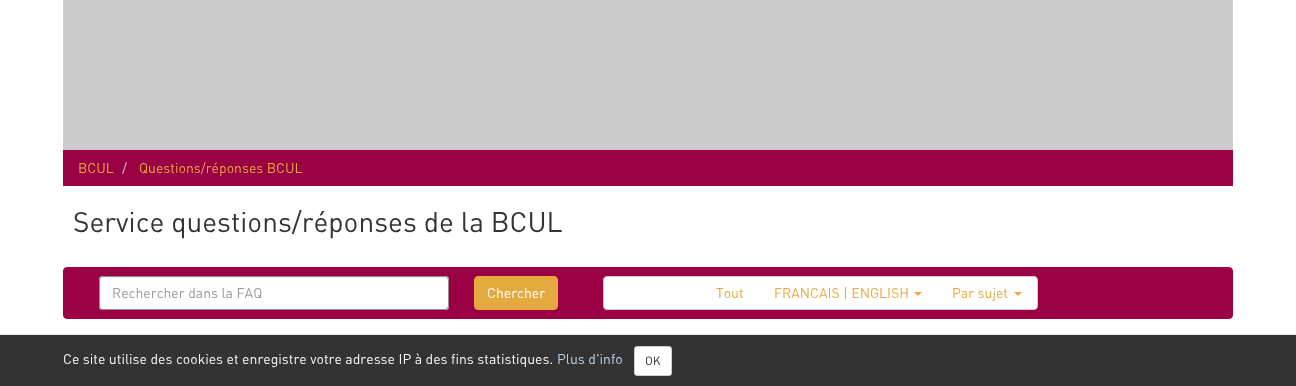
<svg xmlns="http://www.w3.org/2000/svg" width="1296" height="386">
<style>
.a{font:14px DIN;fill:#e5aa3f}
.b{font:14px DIN;fill:#ccc}
.c{font:28px DIN;fill:#333}
.d{font:14px DIN;fill:#999}
.e{font:14px DIN;fill:#fff}
.f{font:14px DIN;fill:#f8f8f8}
.g{font:14px DIN;fill:#b9d3eb}
.h{font:12px DIN;fill:#333}
</style>
<rect width="100%" height="100%" fill="#fff"/>
<path fill="#ccc" d="M63 0h1170v150H63z"/>
<path fill="#9a0043" d="M63 150h1170v36H63z"/>
<rect fill="#9a0043" stroke="#9a0043" x="63.5" y="267.5" width="1169" height="51" rx="3.5"/>
<rect fill="#fff" x="99" y="276" width="350" height="34" rx="4"/>
<path fill="#ececec" d="M103 278h342c2 0 3 1 3 3c0-2-1-4-3-4h-342l-2 1l-1 3c0-2 1-3 3-3z"/>
<rect fill="none" stroke="#919191" x="99.5" y="276.5" width="349" height="33" rx="3.5"/>
<rect fill="#e5aa3f" stroke="#e5aa3f" x="474.5" y="276.5" width="83" height="33" rx="3.5"/>
<rect fill="#fff" stroke="#ccc" x="603.5" y="276.5" width="434" height="33" rx="3.5"/>
<path fill="#e5aa3f" d="M914 292h8l-4 4z"/>
<path fill="#e5aa3f" d="M1014 292h8l-4 4z"/>
<path fill="#333" d="M0 335h1296v51H0z"/>
<path fill="#e7e7e7" d="M0 334h1296v1H0z"/>
<rect fill="#fff" stroke="#ccc" x="634.5" y="346.5" width="37" height="29" rx="2.5"/>
<text class="a" x="78" y="173">BCUL</text>
<text class="b" x="122" y="173">/</text>
<text class="a" x="139" y="173">Questions/réponses BCUL</text>
<text class="c" x="73" y="232">Service questions/réponses de la BCUL</text>
<text class="d" x="112" y="298">Rechercher dans la FAQ</text>
<text class="e" x="487" y="298">Chercher</text>
<text class="a" x="716" y="298">Tout</text>
<text class="a" x="774" y="298">FRANCAIS | ENGLISH</text>
<text class="a" x="952" y="298">Par sujet</text>
<text class="f" x="63" y="364">Ce site utilise des cookies et enregistre votre adresse IP à des fins statistiques.</text>
<text class="g" x="557" y="364">Plus d'info</text>
<text class="h" x="645" y="365">OK</text>
</svg>
